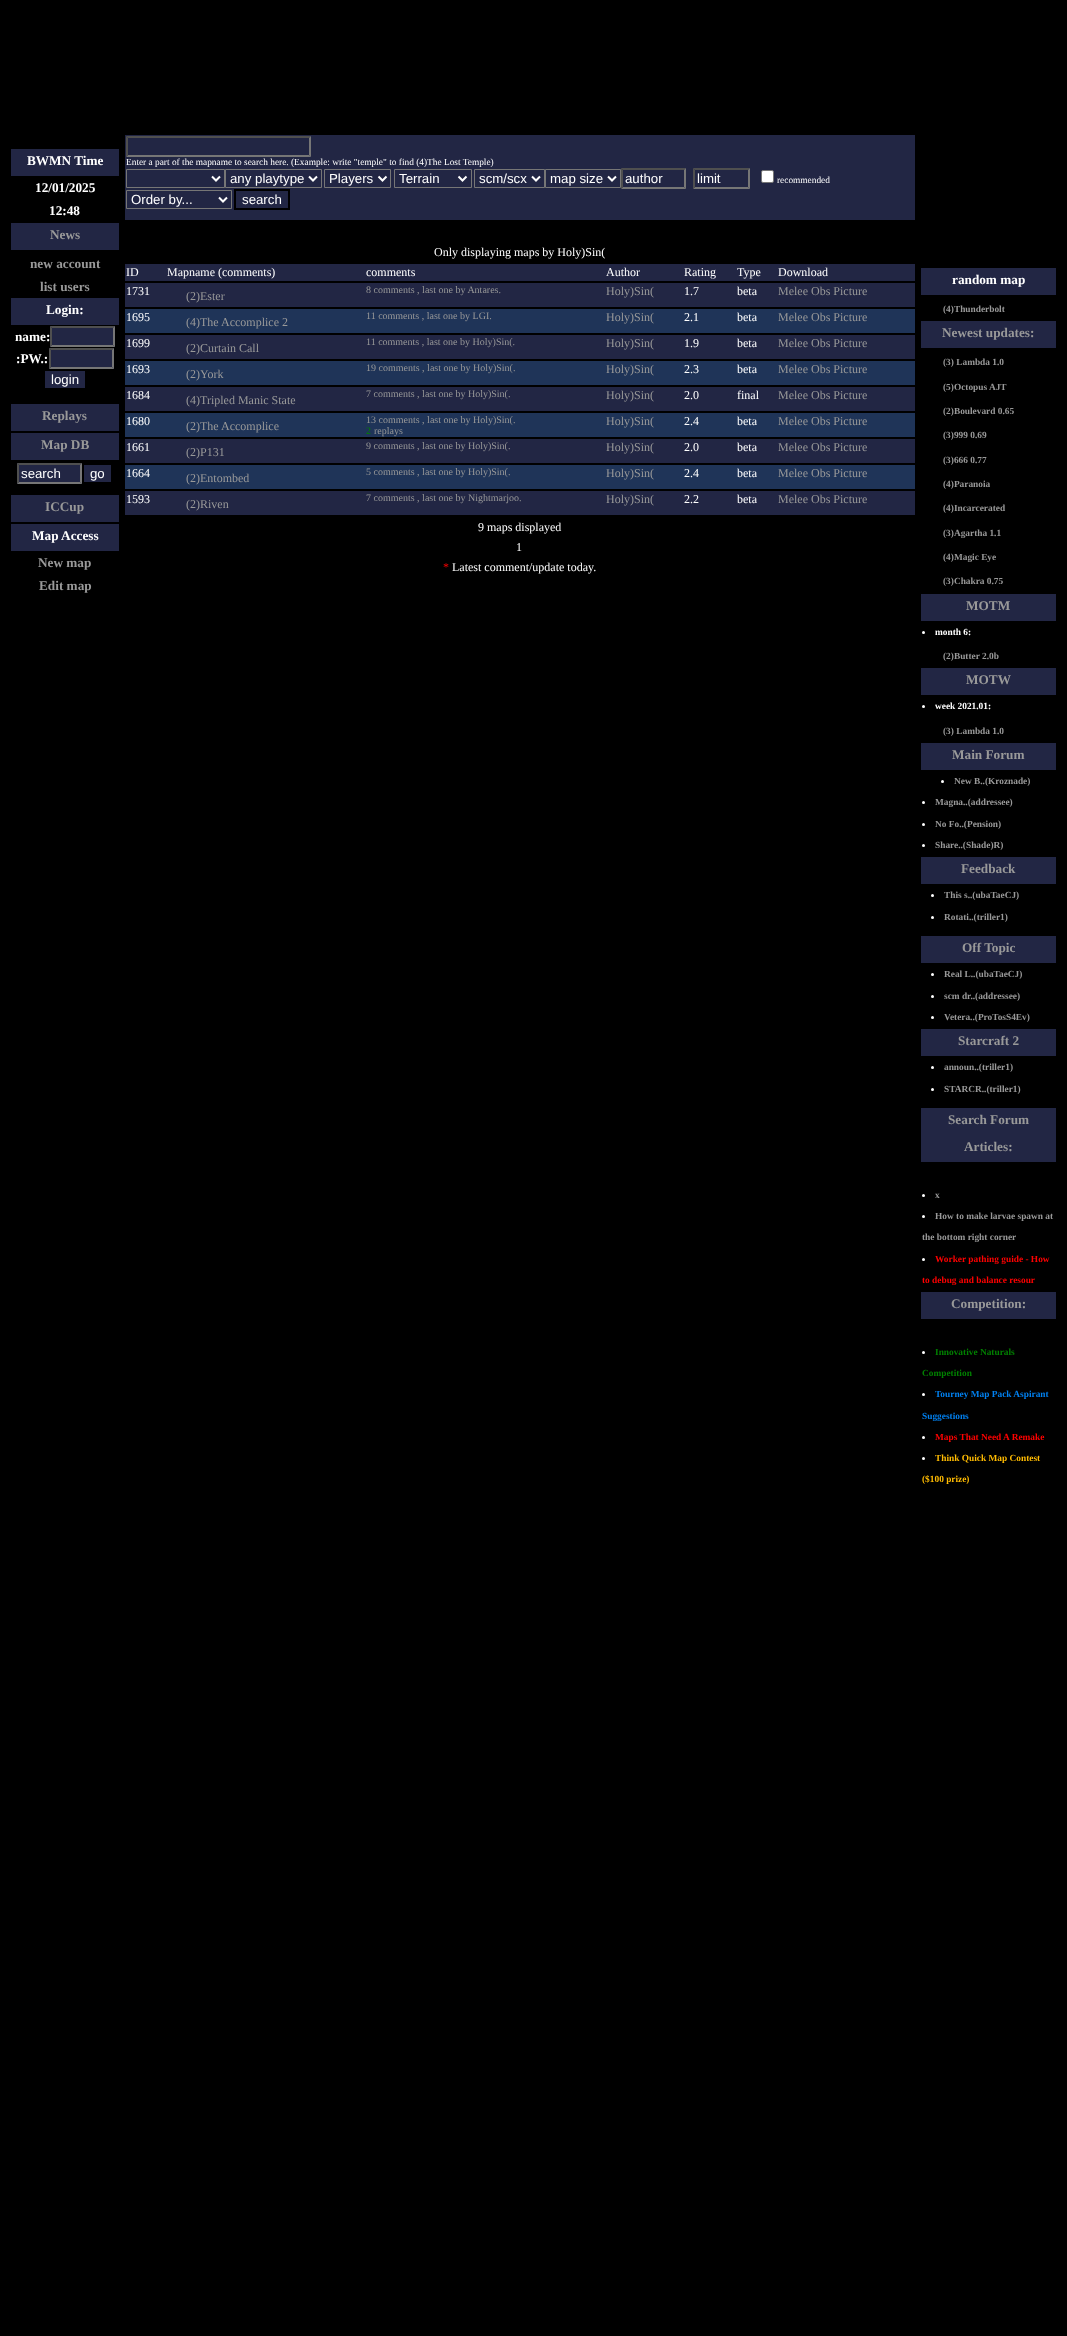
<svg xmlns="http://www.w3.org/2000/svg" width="1067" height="2336">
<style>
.a{font:bold 13.25px Liberation Serif;fill:#fff}
.b{font:bold 13.25px Liberation Serif;fill:#999}
.c{font:13.25px Liberation Sans;fill:#fff}
.d{font:9.35px Liberation Serif;fill:#fff}
.e{font:12px Liberation Serif;fill:#fff}
.f{font:12px Liberation Serif;fill:#999}
.g{font:10px Liberation Serif;fill:#999}
.h{font:10px Liberation Serif;fill:#008000}
.i{font:12px Liberation Serif;fill:#f00}
.j{font:bold 9.35px Liberation Serif;fill:#999}
.k{font:bold 9.35px Liberation Serif;fill:#fff}
.l{font:bold 9.35px Liberation Serif;fill:#f00}
.m{font:bold 9.35px Liberation Serif;fill:#008000}
.n{font:bold 9.35px Liberation Serif;fill:#0080f0}
.o{font:bold 9.35px Liberation Serif;fill:#fb0}
</style>
<rect width="100%" height="100%" fill="#000"/>
<path fill="#222644" d="M11 149h108v27H11z"/>
<path fill="#222644" d="M11 223h108v27H11z"/>
<path fill="#222644" d="M11 298h108v27H11z"/>
<path fill="#222644" d="M50 326h65v21H50z"/>
<path fill="#4f4f4f" d="M50 326h65l-2 2h-61z"/>
<path fill="#767676" d="M115 326v21l-2-2v-17z"/>
<path fill="#767676" d="M115 347h-65l2-2h61z"/>
<path fill="#4f4f4f" d="M50 347v-21l2 2v17z"/>
<path fill="#222644" d="M49 348h65v21H49z"/>
<path fill="#4f4f4f" d="M49 348h65l-2 2h-61z"/>
<path fill="#767676" d="M114 348v21l-2-2v-17z"/>
<path fill="#767676" d="M114 369h-65l2-2h61z"/>
<path fill="#4f4f4f" d="M49 369v-21l2 2v17z"/>
<path fill="#222644" d="M45 371h40v17H45z"/>
<path fill="#222644" d="M11 404h108v27H11z"/>
<path fill="#222644" d="M11 433h108v27H11z"/>
<path fill="#222644" d="M17 463h65v21H17z"/>
<path fill="#4f4f4f" d="M17 463h65l-2 2h-61z"/>
<path fill="#767676" d="M82 463v21l-2-2v-17z"/>
<path fill="#767676" d="M82 484h-65l2-2h61z"/>
<path fill="#4f4f4f" d="M17 484v-21l2 2v17z"/>
<path fill="#222644" d="M84 465h27v17H84z"/>
<path fill="#222644" d="M11 495h108v27H11z"/>
<path fill="#222644" d="M11 524h108v27H11z"/>
<path fill="#222644" d="M125 135h790v85H125z"/>
<path fill="#4f4f4f" d="M126 136h185l-2 2h-181z"/>
<path fill="#767676" d="M311 136v21l-2-2v-17z"/>
<path fill="#767676" d="M311 157h-185l2-2h181z"/>
<path fill="#4f4f4f" d="M126 157v-21l2 2v17z"/>
<path fill="none" stroke="#767676" d="M126.5 169.5h98v18H126.5z"/>
<path fill="none" stroke="#fff" stroke-width="2" d="M212 176.5l4 4l4-4"/>
<path fill="none" stroke="#767676" d="M225.5 169.5h96v18H225.5z"/>
<path fill="none" stroke="#fff" stroke-width="2" d="M309 176.5l4 4l4-4"/>
<path fill="none" stroke="#767676" d="M324.5 169.5h66v18H324.5z"/>
<path fill="none" stroke="#fff" stroke-width="2" d="M378.5 176.5l4 4l4-4"/>
<path fill="none" stroke="#767676" d="M394.5 169.5h77v18H394.5z"/>
<path fill="none" stroke="#fff" stroke-width="2" d="M458.5 176.5l4 4l4-4"/>
<path fill="none" stroke="#767676" d="M474.5 169.5h70v18H474.5z"/>
<path fill="none" stroke="#fff" stroke-width="2" d="M532 176.5l4 4l4-4"/>
<path fill="none" stroke="#767676" d="M545.5 169.5h75v18H545.5z"/>
<path fill="none" stroke="#fff" stroke-width="2" d="M608 176.5l4 4l4-4"/>
<path fill="#4f4f4f" d="M621 168h65l-2 2h-61z"/>
<path fill="#767676" d="M686 168v21l-2-2v-17z"/>
<path fill="#767676" d="M686 189h-65l2-2h61z"/>
<path fill="#4f4f4f" d="M621 189v-21l2 2v17z"/>
<path fill="#4f4f4f" d="M693 168h57l-2 2h-53z"/>
<path fill="#767676" d="M750 168v21l-2-2v-17z"/>
<path fill="#767676" d="M750 189h-57l2-2h53z"/>
<path fill="#4f4f4f" d="M693 189v-21l2 2v17z"/>
<rect fill="#fff" stroke="#767676" x="761.5" y="170.5" width="12" height="12" rx="1.5"/>
<path fill="none" stroke="#767676" d="M126.5 190.5h105v18H126.5z"/>
<path fill="none" stroke="#fff" stroke-width="2" d="M219 197.5l4 4l4-4"/>
<path fill="none" stroke="#000" stroke-width="2" d="M235 190h54v19H235z"/>
<path fill="#222644" d="M125 264h790v17H125z"/>
<path fill="#222644" d="M125 283h790v24H125z"/>
<path fill="#1f3458" d="M125 309h790v24H125z"/>
<path fill="#222644" d="M125 335h790v24H125z"/>
<path fill="#1f3458" d="M125 361h790v24H125z"/>
<path fill="#222644" d="M125 387h790v24H125z"/>
<path fill="#1f3458" d="M125 413h790v24H125z"/>
<path fill="#222644" d="M125 439h790v24H125z"/>
<path fill="#1f3458" d="M125 465h790v24H125z"/>
<path fill="#222644" d="M125 491h790v24H125z"/>
<path fill="#222644" d="M921 268h135v27H921z"/>
<path fill="#222644" d="M921 321h135v27H921z"/>
<path fill="#222644" d="M921 594h135v27H921z"/>
<circle fill="#fff" cx="923.5" cy="632.5" r="1.5"/>
<path fill="#222644" d="M921 668h135v27H921z"/>
<circle fill="#fff" cx="923.5" cy="706.5" r="1.5"/>
<path fill="#222644" d="M921 743h135v27H921z"/>
<circle fill="#fff" cx="942.5" cy="781.5" r="1.5"/>
<circle fill="#fff" cx="923.5" cy="802.5" r="1.5"/>
<circle fill="#fff" cx="923.5" cy="824.5" r="1.5"/>
<circle fill="#fff" cx="923.5" cy="845.5" r="1.5"/>
<path fill="#222644" d="M921 857h135v27H921z"/>
<circle fill="#fff" cx="932.5" cy="895.5" r="1.5"/>
<circle fill="#fff" cx="932.5" cy="917.5" r="1.5"/>
<path fill="#222644" d="M921 936h135v27H921z"/>
<circle fill="#fff" cx="932.5" cy="974.5" r="1.5"/>
<circle fill="#fff" cx="932.5" cy="996.5" r="1.5"/>
<circle fill="#fff" cx="932.5" cy="1017.5" r="1.5"/>
<path fill="#222644" d="M921 1029h135v27H921z"/>
<circle fill="#fff" cx="932.5" cy="1067.5" r="1.5"/>
<circle fill="#fff" cx="932.5" cy="1089.5" r="1.5"/>
<path fill="#222644" d="M921 1108h135v54H921z"/>
<circle fill="#fff" cx="923.5" cy="1195.5" r="1.5"/>
<circle fill="#fff" cx="923.5" cy="1216.5" r="1.5"/>
<circle fill="#fff" cx="923.5" cy="1259.5" r="1.5"/>
<path fill="#222644" d="M921 1292h135v27H921z"/>
<circle fill="#fff" cx="923.5" cy="1352.5" r="1.5"/>
<circle fill="#fff" cx="923.5" cy="1394.5" r="1.5"/>
<circle fill="#fff" cx="923.5" cy="1437.5" r="1.5"/>
<circle fill="#fff" cx="923.5" cy="1458.5" r="1.5"/>
<text class="a" x="27" y="165">BWMN Time</text>
<text class="a" x="35" y="192">12/01/2025</text>
<text class="a" x="49" y="215">12:48</text>
<text class="b" x="50" y="239">News</text>
<text class="b" x="30" y="268">new account</text>
<text class="b" x="40" y="291">list users</text>
<text class="a" x="46" y="314">Login:</text>
<text class="a" x="15" y="341">name:</text>
<text class="a" x="16" y="363">:PW.:</text>
<text class="c" x="51" y="384">login</text>
<text class="b" x="42" y="420">Replays</text>
<text class="b" x="41" y="449">Map DB</text>
<text class="c" x="21" y="478">search</text>
<text class="c" x="90" y="478">go</text>
<text class="b" x="45" y="511">ICCup</text>
<text class="a" x="32" y="540">Map Access</text>
<text class="b" x="38" y="567">New map</text>
<text class="b" x="39" y="590">Edit map</text>
<text class="d" x="126" y="165">Enter a part of the mapname to search here. (Example: write "temple" to find (4)The Lost Temple)</text>
<text class="c" x="230" y="183">any playtype</text>
<text class="c" x="329" y="183">Players</text>
<text class="c" x="399" y="183">Terrain</text>
<text class="c" x="479" y="183">scm/scx</text>
<text class="c" x="550" y="183">map size</text>
<text class="c" x="625" y="183">author</text>
<text class="c" x="697" y="183">limit</text>
<text class="d" x="777" y="183">recommended</text>
<text class="c" x="131" y="204">Order by...</text>
<text class="c" x="242" y="204">search</text>
<text class="e" x="434" y="256">Only displaying maps by Holy)Sin(</text>
<text class="e" x="126" y="276">ID</text>
<text class="e" x="167" y="276">Mapname (comments)</text>
<text class="e" x="366" y="276">comments</text>
<text class="e" x="606" y="276">Author</text>
<text class="e" x="684" y="276">Rating</text>
<text class="e" x="737" y="276">Type</text>
<text class="e" x="778" y="276">Download</text>
<text class="e" x="126" y="295">1731</text>
<text class="f" x="186" y="300">(2)Ester</text>
<text class="g" x="366" y="293">8 comments , last one by Antares.</text>
<text class="f" x="606" y="295">Holy)Sin(</text>
<text class="e" x="684" y="295">1.7</text>
<text class="e" x="737" y="295">beta</text>
<text class="f" x="778" y="295">Melee Obs Picture</text>
<text class="e" x="126" y="321">1695</text>
<text class="f" x="186" y="326">(4)The Accomplice 2</text>
<text class="g" x="366" y="319">11 comments , last one by LGI.</text>
<text class="f" x="606" y="321">Holy)Sin(</text>
<text class="e" x="684" y="321">2.1</text>
<text class="e" x="737" y="321">beta</text>
<text class="f" x="778" y="321">Melee Obs Picture</text>
<text class="e" x="126" y="347">1699</text>
<text class="f" x="186" y="352">(2)Curtain Call</text>
<text class="g" x="366" y="345">11 comments , last one by Holy)Sin(.</text>
<text class="f" x="606" y="347">Holy)Sin(</text>
<text class="e" x="684" y="347">1.9</text>
<text class="e" x="737" y="347">beta</text>
<text class="f" x="778" y="347">Melee Obs Picture</text>
<text class="e" x="126" y="373">1693</text>
<text class="f" x="186" y="378">(2)York</text>
<text class="g" x="366" y="371">19 comments , last one by Holy)Sin(.</text>
<text class="f" x="606" y="373">Holy)Sin(</text>
<text class="e" x="684" y="373">2.3</text>
<text class="e" x="737" y="373">beta</text>
<text class="f" x="778" y="373">Melee Obs Picture</text>
<text class="e" x="126" y="399">1684</text>
<text class="f" x="186" y="404">(4)Tripled Manic State</text>
<text class="g" x="366" y="397">7 comments , last one by Holy)Sin(.</text>
<text class="f" x="606" y="399">Holy)Sin(</text>
<text class="e" x="684" y="399">2.0</text>
<text class="e" x="737" y="399">final</text>
<text class="f" x="778" y="399">Melee Obs Picture</text>
<text class="e" x="126" y="425">1680</text>
<text class="f" x="186" y="430">(2)The Accomplice</text>
<text class="g" x="366" y="423">13 comments , last one by Holy)Sin(.</text>
<text class="h" x="366" y="434">2</text>
<text class="g" x="374" y="434">replays</text>
<text class="f" x="606" y="425">Holy)Sin(</text>
<text class="e" x="684" y="425">2.4</text>
<text class="e" x="737" y="425">beta</text>
<text class="f" x="778" y="425">Melee Obs Picture</text>
<text class="e" x="126" y="451">1661</text>
<text class="f" x="186" y="456">(2)P131</text>
<text class="g" x="366" y="449">9 comments , last one by Holy)Sin(.</text>
<text class="f" x="606" y="451">Holy)Sin(</text>
<text class="e" x="684" y="451">2.0</text>
<text class="e" x="737" y="451">beta</text>
<text class="f" x="778" y="451">Melee Obs Picture</text>
<text class="e" x="126" y="477">1664</text>
<text class="f" x="186" y="482">(2)Entombed</text>
<text class="g" x="366" y="475">5 comments , last one by Holy)Sin(.</text>
<text class="f" x="606" y="477">Holy)Sin(</text>
<text class="e" x="684" y="477">2.4</text>
<text class="e" x="737" y="477">beta</text>
<text class="f" x="778" y="477">Melee Obs Picture</text>
<text class="e" x="126" y="503">1593</text>
<text class="f" x="186" y="508">(2)Riven</text>
<text class="g" x="366" y="501">7 comments , last one by Nightmarjoo.</text>
<text class="f" x="606" y="503">Holy)Sin(</text>
<text class="e" x="684" y="503">2.2</text>
<text class="e" x="737" y="503">beta</text>
<text class="f" x="778" y="503">Melee Obs Picture</text>
<text class="e" x="478" y="531">9 maps displayed</text>
<text class="e" x="516" y="551">1</text>
<text class="i" x="443" y="571">*</text>
<text class="e" x="452" y="571">Latest comment/update today.</text>
<text class="a" x="952" y="284">random map</text>
<text class="j" x="943" y="312">(4)Thunderbolt</text>
<text class="b" x="942" y="337">Newest updates:</text>
<text class="j" x="943" y="365">(3) Lambda 1.0</text>
<text class="j" x="943" y="390">(5)Octopus AJT</text>
<text class="j" x="943" y="414">(2)Boulevard 0.65</text>
<text class="j" x="943" y="438">(3)999 0.69</text>
<text class="j" x="943" y="463">(3)666 0.77</text>
<text class="j" x="943" y="487">(4)Paranoia</text>
<text class="j" x="943" y="511">(4)Incarcerated</text>
<text class="j" x="943" y="536">(3)Agartha 1.1</text>
<text class="j" x="943" y="560">(4)Magic Eye</text>
<text class="j" x="943" y="584">(3)Chakra 0.75</text>
<text class="b" x="966" y="610">MOTM</text>
<text class="k" x="935" y="635">month 6:</text>
<text class="j" x="943" y="659">(2)Butter 2.0b</text>
<text class="b" x="966" y="684">MOTW</text>
<text class="k" x="935" y="709">week 2021.01:</text>
<text class="j" x="943" y="734">(3) Lambda 1.0</text>
<text class="b" x="952" y="759">Main Forum</text>
<text class="j" x="954" y="784">New B..(Kroznade)</text>
<text class="j" x="935" y="805">Magna..(addressee)</text>
<text class="j" x="935" y="827">No Fo..(Pension)</text>
<text class="j" x="935" y="848">Share..(Shade)R)</text>
<text class="b" x="961" y="873">Feedback</text>
<text class="j" x="944" y="898">This s..(ubaTaeCJ)</text>
<text class="j" x="944" y="920">Rotati..(triller1)</text>
<text class="b" x="962" y="952">Off Topic</text>
<text class="j" x="944" y="977">Real L..(ubaTaeCJ)</text>
<text class="j" x="944" y="999">scm dr..(addressee)</text>
<text class="j" x="944" y="1020">Vetera..(ProTosS4Ev)</text>
<text class="b" x="958" y="1045">Starcraft 2</text>
<text class="j" x="944" y="1070">announ..(triller1)</text>
<text class="j" x="944" y="1092">STARCR..(triller1)</text>
<text class="b" x="948" y="1124">Search Forum</text>
<text class="b" x="964" y="1151">Articles:</text>
<text class="j" x="935" y="1198">x</text>
<text class="j" x="935" y="1219">How to make larvae spawn at</text>
<text class="j" x="922" y="1240">the bottom right corner</text>
<text class="l" x="935" y="1262">Worker pathing guide - How</text>
<text class="l" x="922" y="1283">to debug and balance resour</text>
<text class="b" x="951" y="1308">Competition:</text>
<text class="m" x="935" y="1355">Innovative Naturals</text>
<text class="m" x="922" y="1376">Competition</text>
<text class="n" x="935" y="1397">Tourney Map Pack Aspirant</text>
<text class="n" x="922" y="1419">Suggestions</text>
<text class="l" x="935" y="1440">Maps That Need A Remake</text>
<text class="o" x="935" y="1461">Think Quick Map Contest</text>
<text class="o" x="922" y="1482">($100 prize)</text>
</svg>
